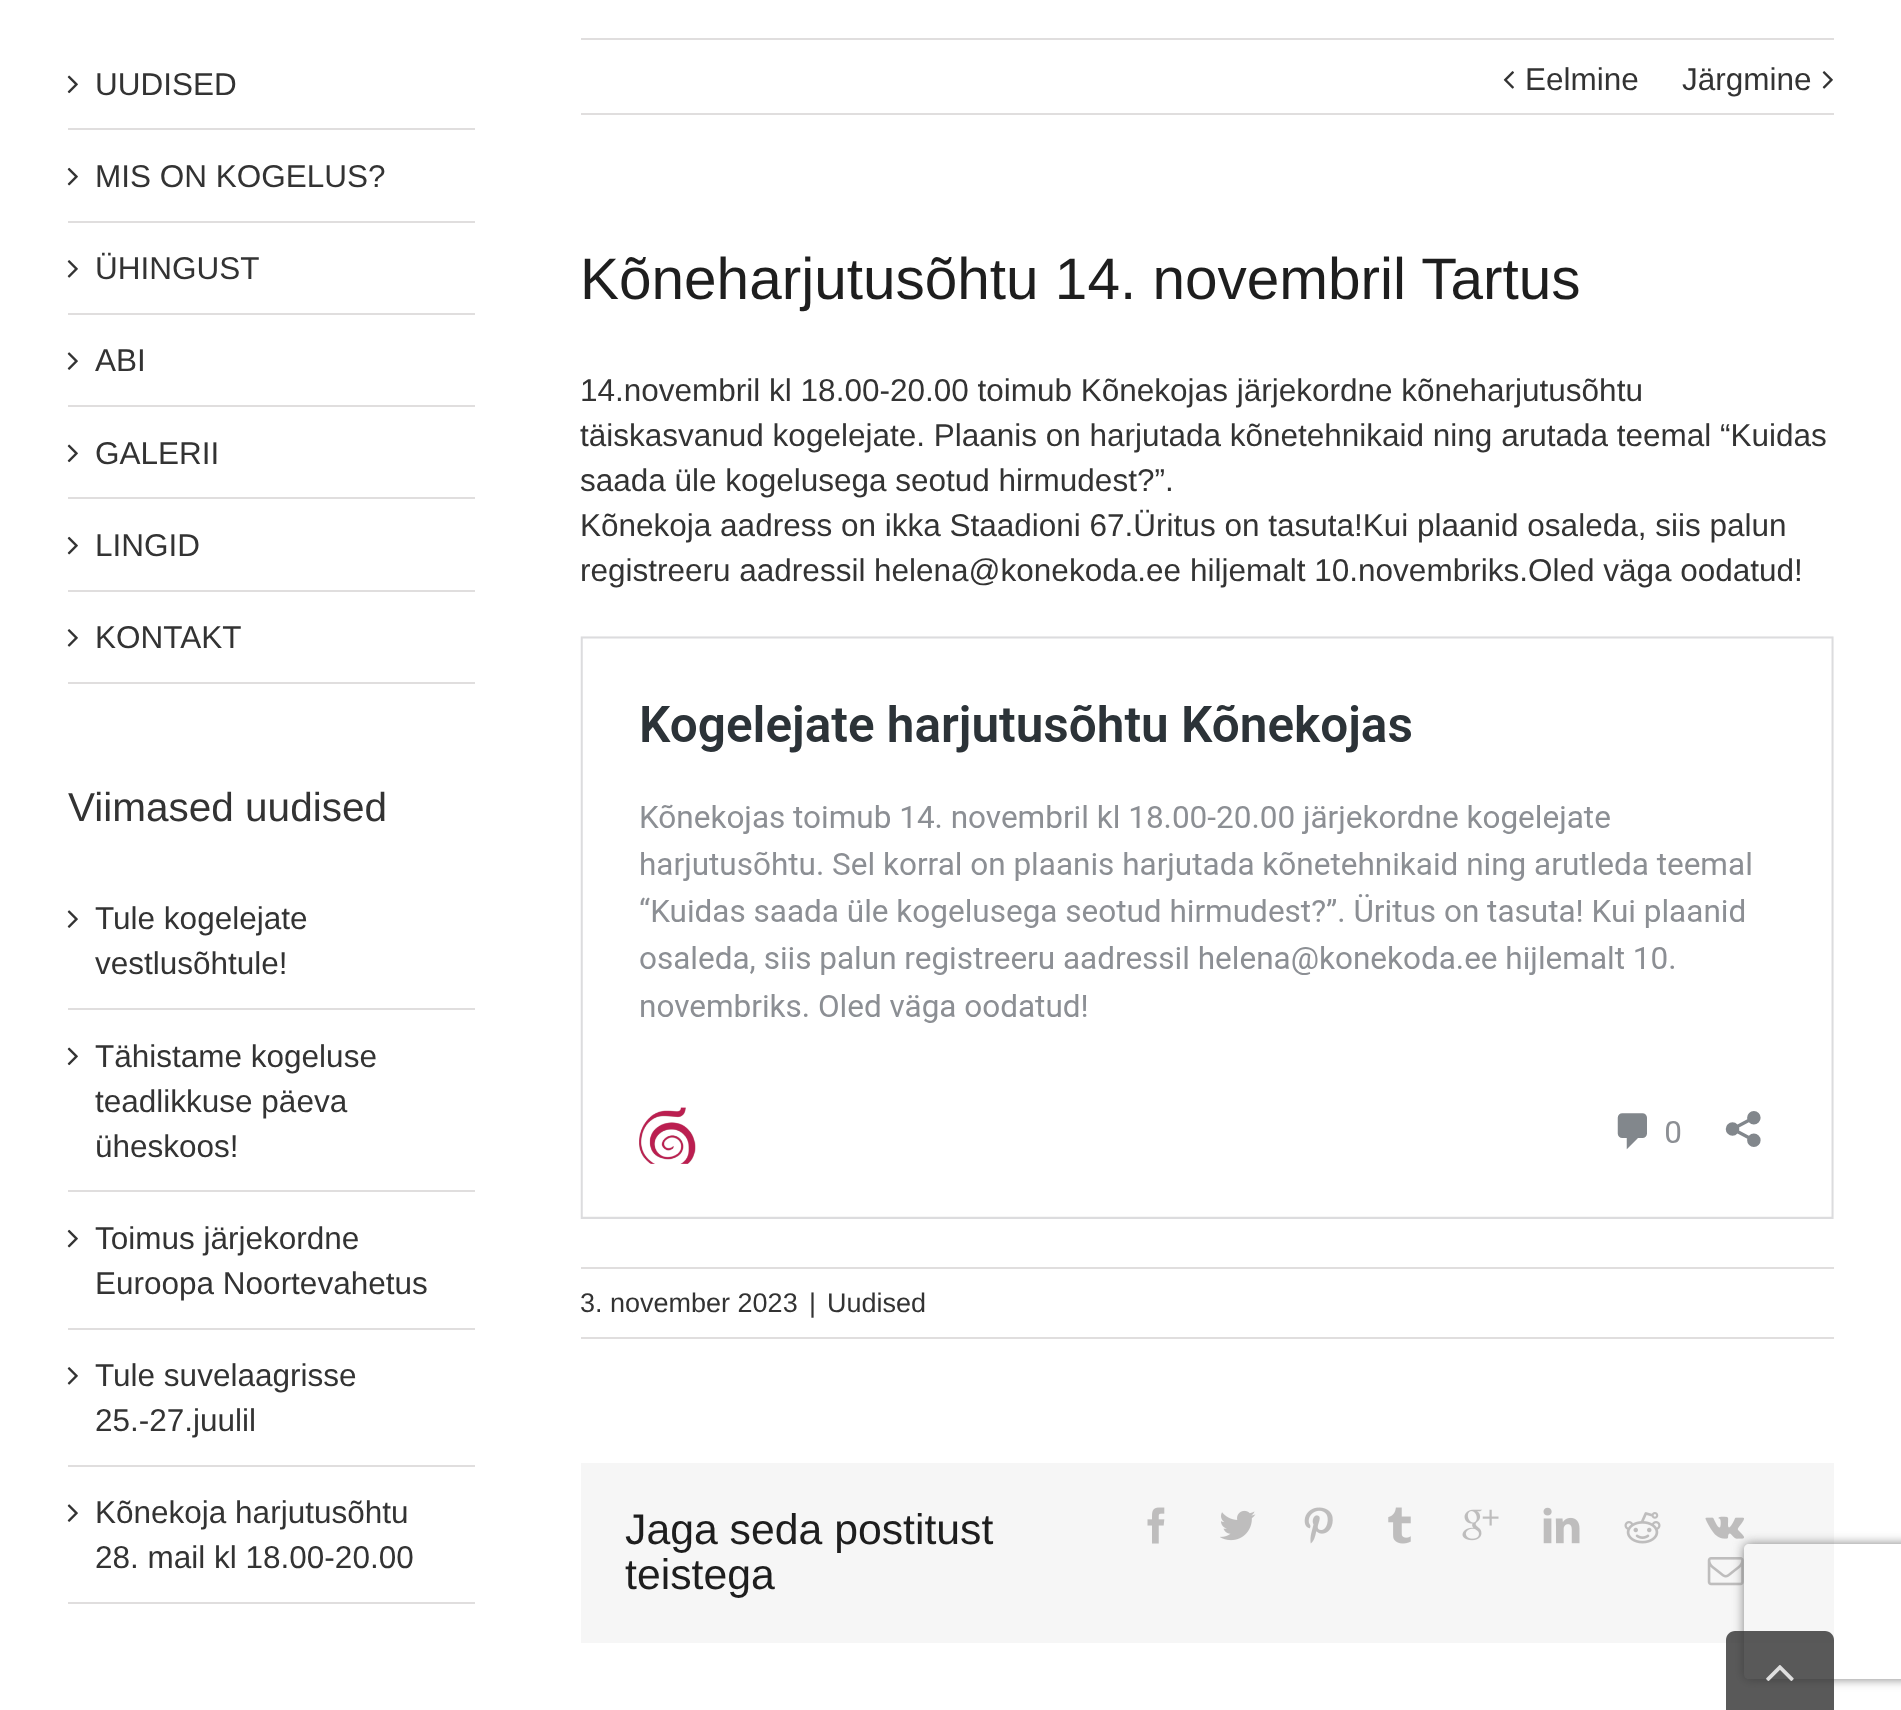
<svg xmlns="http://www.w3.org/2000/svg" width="1901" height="1710">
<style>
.a{font:31.5px Liberation Sans;fill:#333}
.b{font:40.5px Liberation Sans;fill:#333}
.c{font:58.5px Liberation Sans;fill:#1e1e1e}
.d{font:27px Liberation Sans;fill:#333}
.e{font:42.75px Liberation Sans;fill:#1e1e1e}
</style>
<defs>
<clipPath id="clip1"><path d="M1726 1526h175v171h-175zm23 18h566c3 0 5 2 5 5v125c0 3-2 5-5 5h-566c-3 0-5-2-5-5v-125c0-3 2-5 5-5z" clip-rule="evenodd"/></clipPath>
</defs>
<rect width="100%" height="100%" fill="#fff"/>
<path fill="#e0dede" d="M68 128h407v2H68z"/>
<image href="1.png" x="67" y="75" width="11" height="19"/>
<path fill="#e0dede" d="M68 221h407v2H68z"/>
<image href="2.png" x="67" y="167" width="11" height="19"/>
<path fill="#e0dede" d="M68 313h407v2H68z"/>
<image href="3.png" x="67" y="260" width="11" height="18"/>
<path fill="#e0dede" d="M68 405h407v2H68z"/>
<image href="4.png" x="67" y="352" width="11" height="18"/>
<path fill="#e0dede" d="M68 497h407v2H68z"/>
<image href="1.png" x="67" y="444" width="11" height="19"/>
<path fill="#e0dede" d="M68 590h407v2H68z"/>
<image href="2.png" x="67" y="536" width="11" height="19"/>
<path fill="#e0dede" d="M68 682h407v2H68z"/>
<image href="3.png" x="67" y="629" width="11" height="18"/>
<path fill="#e0dede" d="M68 1008h407v2H68z"/>
<image href="4.png" x="67" y="910" width="11" height="18"/>
<path fill="#e0dede" d="M68 1190h407v2H68z"/>
<image href="1.png" x="67" y="1047" width="11" height="19"/>
<path fill="#e0dede" d="M68 1328h407v2H68z"/>
<image href="2.png" x="67" y="1229" width="11" height="19"/>
<path fill="#e0dede" d="M68 1465h407v2H68z"/>
<image href="3.png" x="67" y="1367" width="11" height="18"/>
<path fill="#e0dede" d="M68 1602h407v2H68z"/>
<image href="4.png" x="67" y="1504" width="11" height="18"/>
<path fill="#e0dede" d="M581 38h1253v2H581z"/>
<path fill="#e0dede" d="M581 113h1253v2H581z"/>
<image href="5.png" x="1503" y="71" width="11" height="18"/>
<image href="3.png" x="1822" y="71" width="11" height="18"/>
<image href="6.png" x="580" y="636" width="1254" height="583"/>
<path fill="#e0dede" d="M581 1267h1253v2H581z"/>
<path fill="#e0dede" d="M581 1337h1253v2H581z"/>
<path fill="#f6f6f6" d="M581 1463h1253v180H581z"/>
<image href="7.png" x="1147" y="1507" width="18" height="37"/>
<image href="8.png" x="1220" y="1510" width="36" height="31"/>
<image href="9.png" x="1304" y="1507" width="29" height="37"/>
<image href="10.png" x="1388" y="1507" width="23" height="37"/>
<image href="11.png" x="1462" y="1509" width="37" height="32"/>
<image href="12.png" x="1543" y="1507" width="37" height="37"/>
<image href="13.png" x="1624" y="1512" width="37" height="32"/>
<image href="14.png" x="1705" y="1516" width="39" height="23"/>
<image href="15.png" x="1707" y="1557" width="37" height="29"/>
<g clip-path="url(#clip1)">
<rect fill="#808080" filter="blur(5.5px)" x="1744" y="1544" width="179" height="135" rx="5"/>
</g>
<path fill="#333333cf" d="M1735 1631h90c5 0 9 4 9 9v70h-108v-70c0-5 4-9 9-9z"/>
<image href="16.png" x="1766" y="1665" width="28" height="16"/>
<text class="a" x="95" y="95">UUDISED</text>
<text class="a" x="95" y="187">MIS ON KOGELUS?</text>
<text class="a" x="95" y="279">ÜHINGUST</text>
<text class="a" x="95" y="371">ABI</text>
<text class="a" x="95" y="464">GALERII</text>
<text class="a" x="95" y="556">LINGID</text>
<text class="a" x="95" y="648">KONTAKT</text>
<text class="b" x="68" y="821">Viimased uudised</text>
<text class="a" x="95" y="929">Tule kogelejate</text>
<text class="a" x="95" y="974">vestlusõhtule!</text>
<text class="a" x="95" y="1067">Tähistame kogeluse</text>
<text class="a" x="95" y="1112">teadlikkuse päeva</text>
<text class="a" x="95" y="1157">üheskoos!</text>
<text class="a" x="95" y="1249">Toimus järjekordne</text>
<text class="a" x="95" y="1294">Euroopa Noortevahetus</text>
<text class="a" x="95" y="1386">Tule suvelaagrisse</text>
<text class="a" x="95" y="1431">25.-27.juulil</text>
<text class="a" x="95" y="1523">Kõnekoja harjutusõhtu</text>
<text class="a" x="95" y="1568">28. mail kl 18.00-20.00</text>
<text class="a" x="1525" y="90">Eelmine</text>
<text class="a" x="1682" y="90">Järgmine</text>
<text class="c" x="580" y="299">Kõneharjutusõhtu 14. novembril Tartus</text>
<text class="a" x="580" y="401">14.novembril kl 18.00-20.00 toimub Kõnekojas järjekordne kõneharjutusõhtu</text>
<text class="a" x="580" y="446">täiskasvanud kogelejate. Plaanis on harjutada kõnetehnikaid ning arutada teemal “Kuidas</text>
<text class="a" x="580" y="491">saada üle kogelusega seotud hirmudest?”.</text>
<text class="a" x="580" y="536">Kõnekoja aadress on ikka Staadioni 67.Üritus on tasuta!Kui plaanid osaleda, siis palun</text>
<text class="a" x="580" y="581">registreeru aadressil</text>
<text class="a" x="874" y="581">helena@konekoda.ee</text>
<text class="a" x="1190" y="581">hiljemalt 10.novembriks.Oled väga oodatud!</text>
<text class="d" x="580" y="1312">3. november 2023</text>
<text class="d" x="809" y="1312">|</text>
<text class="d" x="827" y="1312">Uudised</text>
<text class="e" x="625" y="1544">Jaga seda postitust</text>
<text class="e" x="625" y="1589">teistega</text>
</svg>
